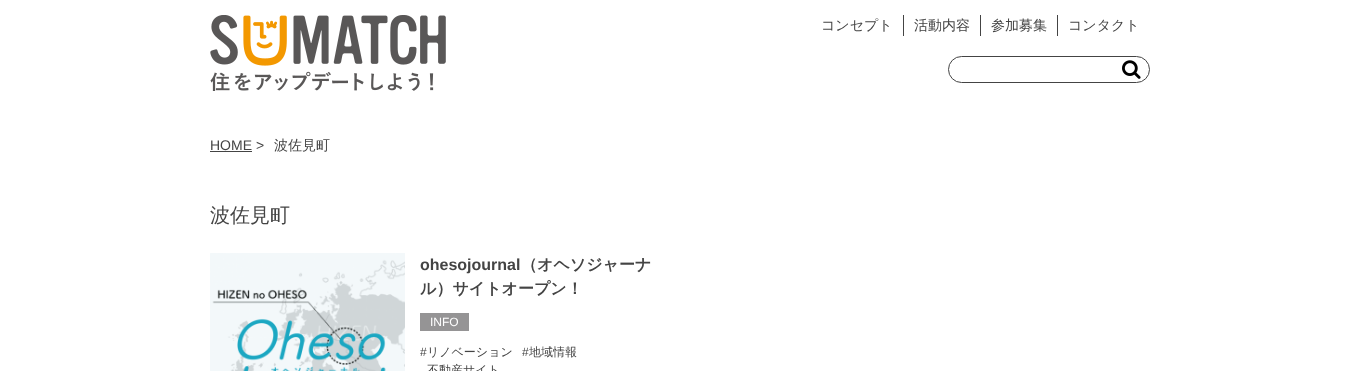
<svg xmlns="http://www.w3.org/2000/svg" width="1359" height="371">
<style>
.a{font:500 14px WenQuanYi Zen Hei;fill:#444}
.b{font:14px Liberation Sans;fill:#444}
.c{font:500 20px WenQuanYi Zen Hei;fill:#444}
.d{font:bold 16px Liberation Sans;fill:#444}
.e{font:bold 16px WenQuanYi Zen Hei;fill:#444}
.f{font:12px Liberation Sans;fill:#fff}
.g{font:12px Liberation Sans;fill:#444}
.h{font:500 12px WenQuanYi Zen Hei;fill:#444}
</style>
<rect width="100%" height="100%" fill="#fff"/>
<image href="1.png" x="210" y="15" width="236" height="76"/>
<path fill="#444" d="M903 15h1v21H903z"/>
<path fill="#444" d="M980 15h1v21H980z"/>
<path fill="#444" d="M1057 15h1v21H1057z"/>
<rect fill="none" stroke="#444" x="948.5" y="56.5" width="201" height="26" rx="13"/>
<image href="2.png" x="1122" y="60" width="19" height="19"/>
<path fill="#444" d="M210 151h42v1H210z"/>
<image href="3.png" x="210" y="253" width="195" height="118"/>
<path fill="#959495" d="M420 313h49v18H420z"/>
<text class="a" x="821" y="30">コンセプト</text>
<text class="a" x="914" y="30">活動内容</text>
<text class="a" x="991" y="30">参加募集</text>
<text class="a" x="1068" y="30">コンタクト</text>
<text class="b" x="210" y="150">HOME &gt;</text>
<text class="a" x="274" y="150">波佐見町</text>
<text class="c" x="210" y="222">波佐見町</text>
<text class="d" x="420" y="270">ohesojournal</text>
<text class="e" x="521" y="270">（オヘソジャーナ</text>
<text class="e" x="420" y="294">ル）サイトオープン！</text>
<text class="f" x="430" y="326">INFO</text>
<text class="g" x="420" y="356">#</text>
<text class="h" x="427" y="356">リノベーション</text>
<text class="g" x="522" y="356">#</text>
<text class="h" x="529" y="356">地域情報</text>
<text class="h" x="427" y="374">不動産サイト</text>
</svg>
